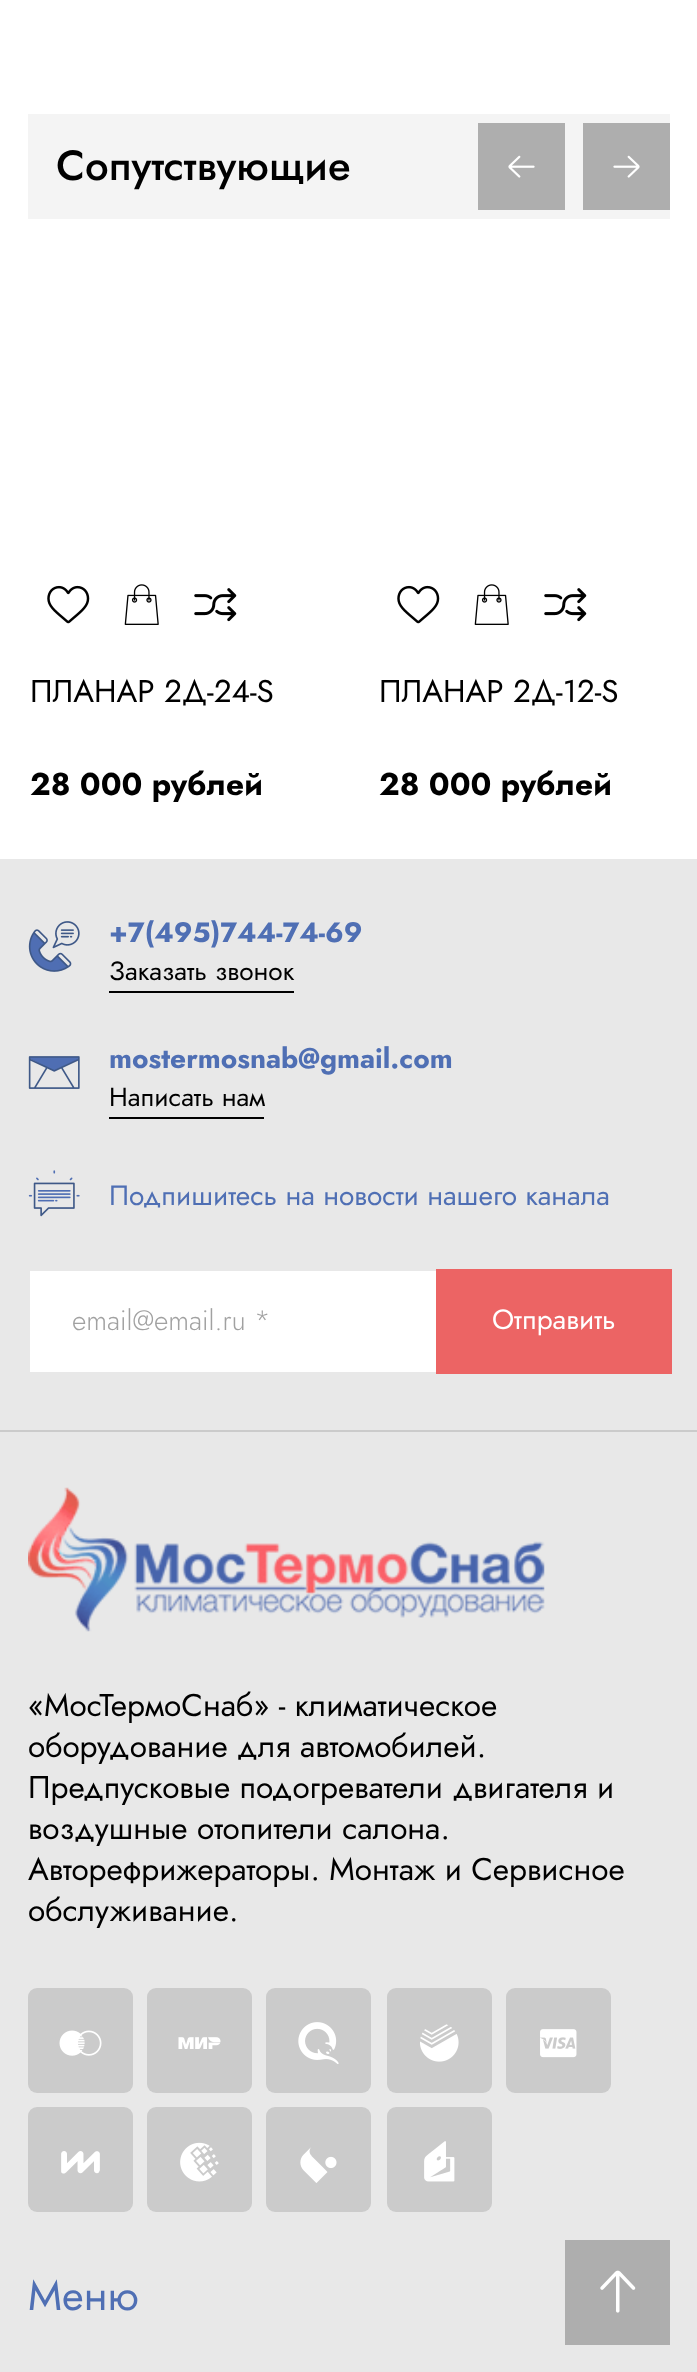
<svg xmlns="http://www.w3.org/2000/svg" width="697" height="2372">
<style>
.a{font:500 42px Jost;fill:#000}
.b{font:31.5px Jost;fill:#000}
.c{font:bold 31.5px Jost;fill:#000}
.d{font:bold 28px Jost;fill:#4f6fb4}
.e{font:26.25px Jost;fill:#000}
.f{font:28px Jost;fill:#4f6fb4}
.g{font:300 28px Jost;fill:#a1a1a1}
.h{font:28px Jost;fill:#fff}
.i{font:42px Jost;fill:#4f6fb4}
</style>
<rect width="100%" height="100%" fill="#fff"/>
<path fill="#f4f4f4" d="M28 114h642v105H28z"/>
<path fill="#aeaeae" d="M478 123h87v87H478z"/>
<image href="1.png" x="508" y="155" width="27" height="23"/>
<path fill="#aeaeae" d="M583 123h87v87H583z"/>
<image href="2.png" x="613" y="155" width="27" height="23"/>
<image href="3.png" x="47" y="585" width="43" height="39"/>
<image href="4.png" x="124" y="584" width="35" height="41"/>
<image href="5.png" x="194" y="588" width="43" height="34"/>
<image href="3.png" x="397" y="585" width="43" height="39"/>
<image href="4.png" x="474" y="584" width="35" height="41"/>
<image href="5.png" x="544" y="588" width="43" height="34"/>
<path fill="#e8e8e8" d="M0 859h697v1513H0z"/>
<path fill="#cbcbcb" d="M0 1430h697v2H0z"/>
<image href="9.png" x="29" y="932" width="39" height="40"/>
<image href="7.png" x="28" y="929" width="44" height="43"/>
<image href="6.png" x="52" y="921" width="28" height="28"/>
<image href="8.png" x="60" y="929" width="14" height="9"/>
<path fill="#000" d="M109 991h185v2H109z"/>
<path fill="#4f6eb3" d="M30 1057v2l24 12l25-12v-2z"/>
<image href="10.png" x="28" y="1056" width="52" height="33"/>
<path fill="#000" d="M109 1117h155v2H109z"/>
<image href="12.png" x="33" y="1182" width="42" height="35"/>
<image href="11.png" x="28" y="1170" width="52" height="32"/>
<path fill="#fff" d="M30 1271h406v101H30z"/>
<path fill="#ec6464" d="M436 1269h236v105H436z"/>
<image href="13.png" x="28" y="1487" width="517" height="145"/>
<rect fill="#cbcbcb" x="28" y="1988" width="105" height="105" rx="9"/>
<image href="14.png" x="59" y="2030" width="43" height="26"/>
<rect fill="#cbcbcb" x="147" y="1988" width="105" height="105" rx="9"/>
<image href="15.png" x="178" y="2037" width="43" height="12"/>
<rect fill="#cbcbcb" x="266" y="1988" width="105" height="105" rx="9"/>
<image href="16.png" x="298" y="2022" width="41" height="42"/>
<rect fill="#cbcbcb" x="387" y="1988" width="105" height="105" rx="9"/>
<image href="17.png" x="420" y="2024" width="39" height="38"/>
<rect fill="#cbcbcb" x="506" y="1988" width="105" height="105" rx="9"/>
<image href="18.png" x="540" y="2029" width="37" height="29"/>
<rect fill="#cbcbcb" x="28" y="2107" width="105" height="105" rx="9"/>
<image href="19.png" x="61" y="2151" width="39" height="23"/>
<rect fill="#cbcbcb" x="147" y="2107" width="105" height="105" rx="9"/>
<image href="20.png" x="180" y="2142" width="39" height="40"/>
<rect fill="#cbcbcb" x="266" y="2107" width="105" height="105" rx="9"/>
<image href="21.png" x="300" y="2147" width="37" height="36"/>
<rect fill="#cbcbcb" x="387" y="2107" width="105" height="105" rx="9"/>
<image href="22.png" x="424" y="2141" width="31" height="41"/>
<path fill="#aeaeae" d="M565 2240h105v105H565z"/>
<image href="23.png" x="600" y="2270" width="36" height="43"/>
<text class="a" x="56" y="180">Сопутствующие</text>
<text class="b" x="30" y="702">ПЛАНАР 2Д-24-S</text>
<text class="c" x="30" y="795">28 000 рублей</text>
<text class="b" x="379" y="702">ПЛАНАР 2Д-12-S</text>
<text class="c" x="379" y="795">28 000 рублей</text>
<text class="d" x="109" y="942">+7(495)744-74-69</text>
<text class="e" x="109" y="980">Заказать звонок</text>
<text class="d" x="109" y="1068">mostermosnab@gmail.com</text>
<text class="e" x="109" y="1106">Написать нам</text>
<text class="f" x="109" y="1205">Подпишитесь на новости нашего канала</text>
<text class="g" x="72" y="1330">email@email.ru *</text>
<text class="h" x="492" y="1329">Отправить</text>
<text class="b" x="28" y="1716">«МосТермоСнаб» - климатическое</text>
<text class="b" x="28" y="1757">оборудование для автомобилей.</text>
<text class="b" x="28" y="1798">Предпусковые подогреватели двигателя и</text>
<text class="b" x="28" y="1839">воздушные отопители салона.</text>
<text class="b" x="28" y="1880">Авторефрижераторы. Монтаж и Сервисное</text>
<text class="b" x="28" y="1921">обслуживание.</text>
<text class="i" x="28" y="2310">Меню</text>
</svg>
